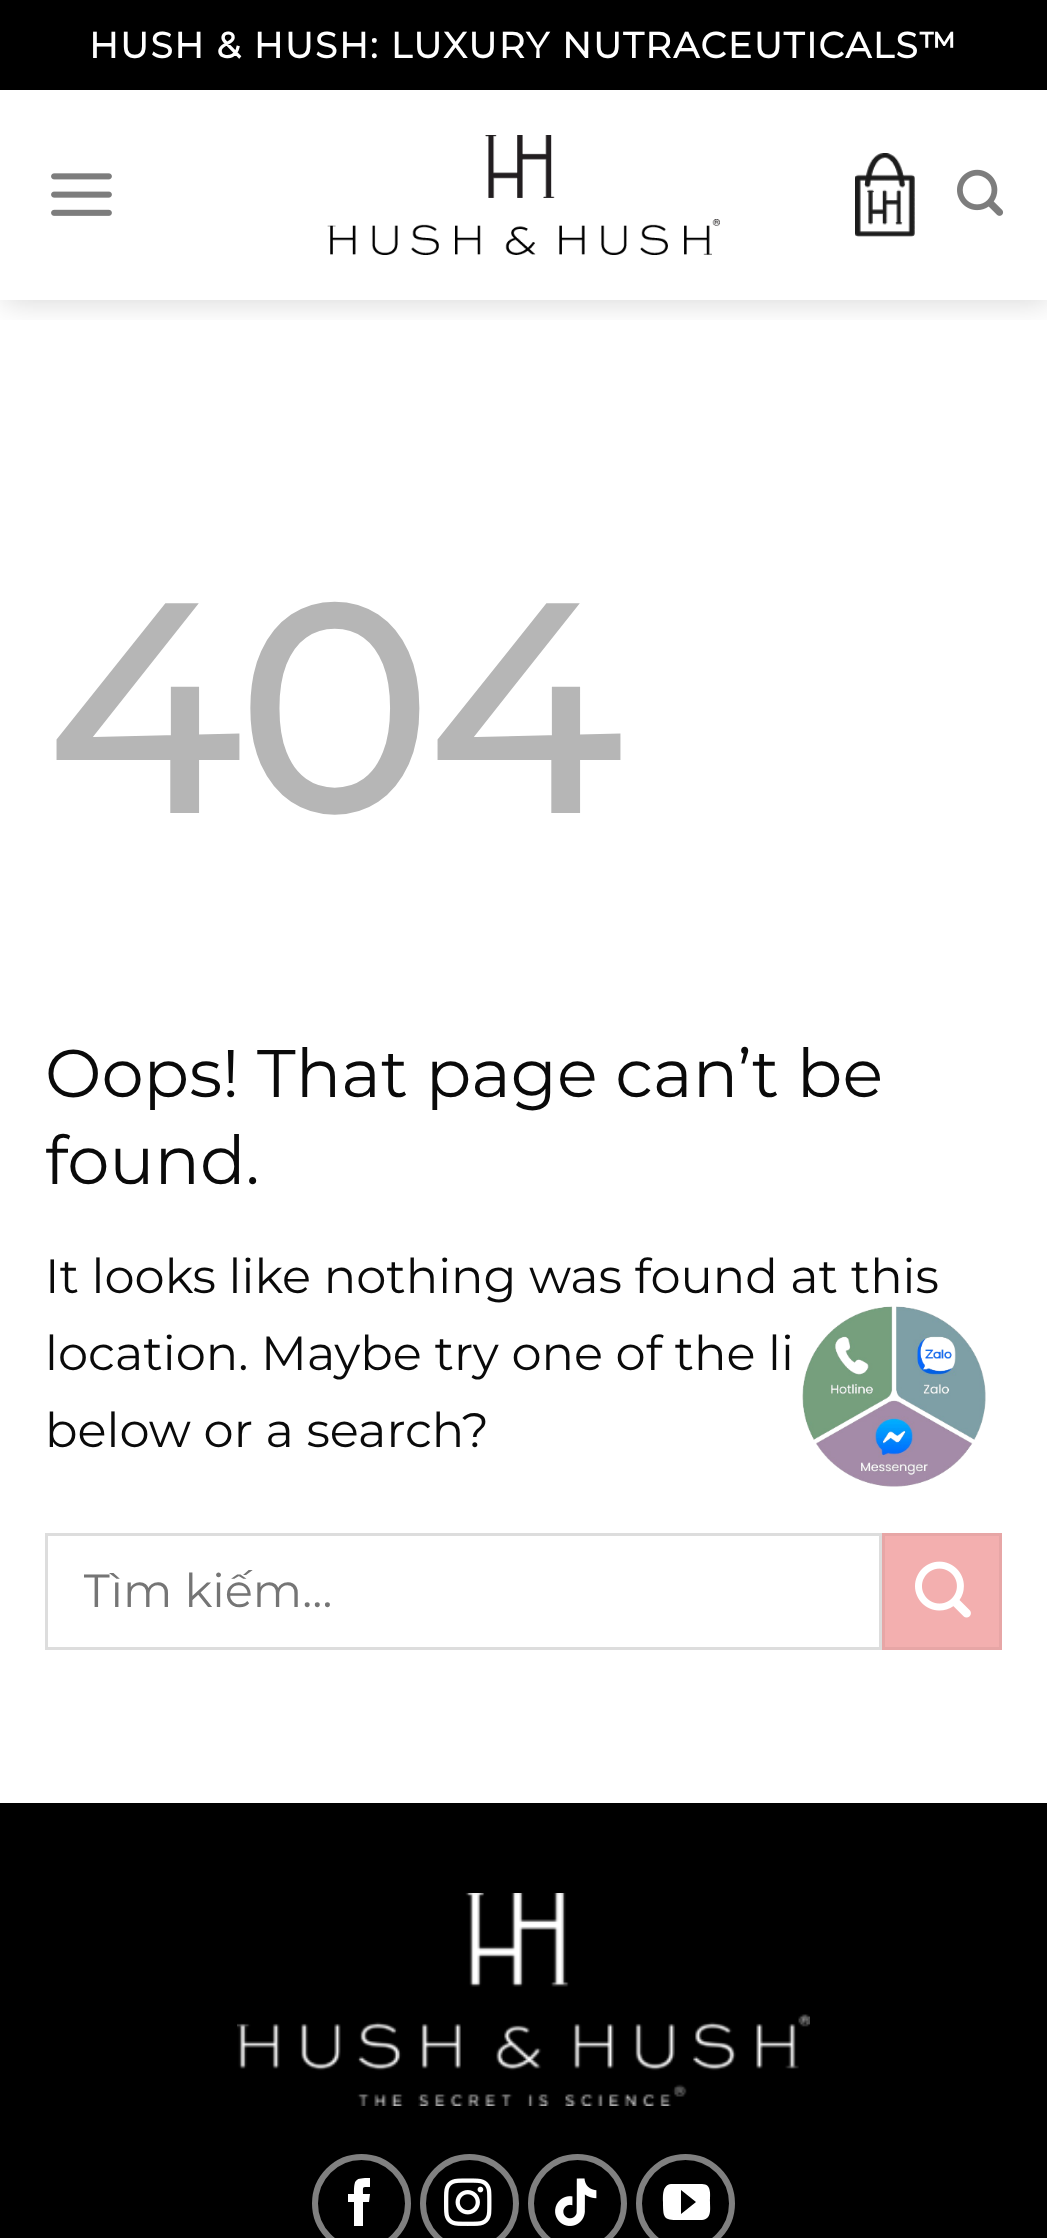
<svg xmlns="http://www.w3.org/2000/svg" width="1047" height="2238">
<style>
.a{font:bold 36px Montserrat;letter-spacing:1.8px;fill:#fff}
.b{font:bold 288px Montserrat;fill:#b6b6b6}
.c{font:100 67.25px Montserrat;fill:#0a0a0a}
.d{font:100 48px Montserrat;fill:#0a0a0a}
.e{font:100 46.5px Montserrat;fill:#757575}
</style>
<defs>
<clipPath id="clip1"><path d="M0 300h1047v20H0z"/></clipPath>
<clipPath id="clip2"><path d="M84 1563h750v57H84z"/></clipPath>
</defs>
<rect width="100%" height="100%" fill="#fff"/>
<g clip-path="url(#clip1)">
<path fill="#00000026" filter="blur(15px)" d="M3 3h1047v300H3z"/>
</g>
<path fill="#000" d="M0 0h1047v90H0z"/>
<image href="1.png" x="51" y="173" width="61" height="43"/>
<image href="2.png" x="327" y="135" width="393" height="120"/>
<image href="3.png" x="855" y="153" width="60" height="84"/>
<image href="4.png" x="957" y="169" width="47" height="47"/>
<path fill="none" stroke="#ddd" stroke-width="3" d="M46.5 1534.5h834v114H46.5z"/>
<path fill="#f3afaf" stroke="#e7a6a6" stroke-width="3" d="M883.5 1534.5h117v114H883.5z"/>
<image href="5.png" x="915" y="1561" width="56" height="57"/>
<path fill="#000" d="M0 1803h1047v435H0z"/>
<image href="6.png" x="237" y="1893" width="573" height="213"/>
<circle fill="none" stroke="#808080" stroke-width="6" cx="361.5" cy="2203.5" r="46.5"/>
<path fill="#fff" d="M363 2226h-9v-24h-6v-8h6c0-15 1-16 16-16v9c-8 0-7-1-7 7h7l-1 8h-6z"/>
<circle fill="none" stroke="#808080" stroke-width="6" cx="469.5" cy="2203.5" r="46.5"/>
<image href="7.png" x="444" y="2178" width="48" height="48"/>
<circle fill="none" stroke="#808080" stroke-width="6" cx="577.5" cy="2203.5" r="46.5"/>
<image href="8.png" x="555" y="2178" width="42" height="48"/>
<circle fill="none" stroke="#808080" stroke-width="6" cx="685.5" cy="2203.5" r="46.5"/>
<path fill="#fff" d="M702 2184h-31c-9 1-8 12-8 18c0 18 1 18 19 18h20c10-1 8-11 8-18c0-7 2-18-8-18zm-21 30v-24l15 12z"/>
<image href="9.png" x="802" y="1306" width="184" height="181"/>
<text class="a" x="89" y="58">HUSH &amp; HUSH: LUXURY NUTRACEUTICALS™</text>
<text class="b" x="45" y="813">404</text>
<text class="c" x="45" y="1097">Oops! That page can’t be</text>
<text class="c" x="45" y="1184">found.</text>
<text class="d" x="45" y="1293">It looks like nothing was found at this</text>
<text class="d" x="45" y="1370">location. Maybe try one of the li</text>
<text class="d" x="45" y="1447">below or a search?</text>
<g clip-path="url(#clip2)">
<text class="e" x="83" y="1607">Tìm kiếm…</text>
</g>
</svg>
